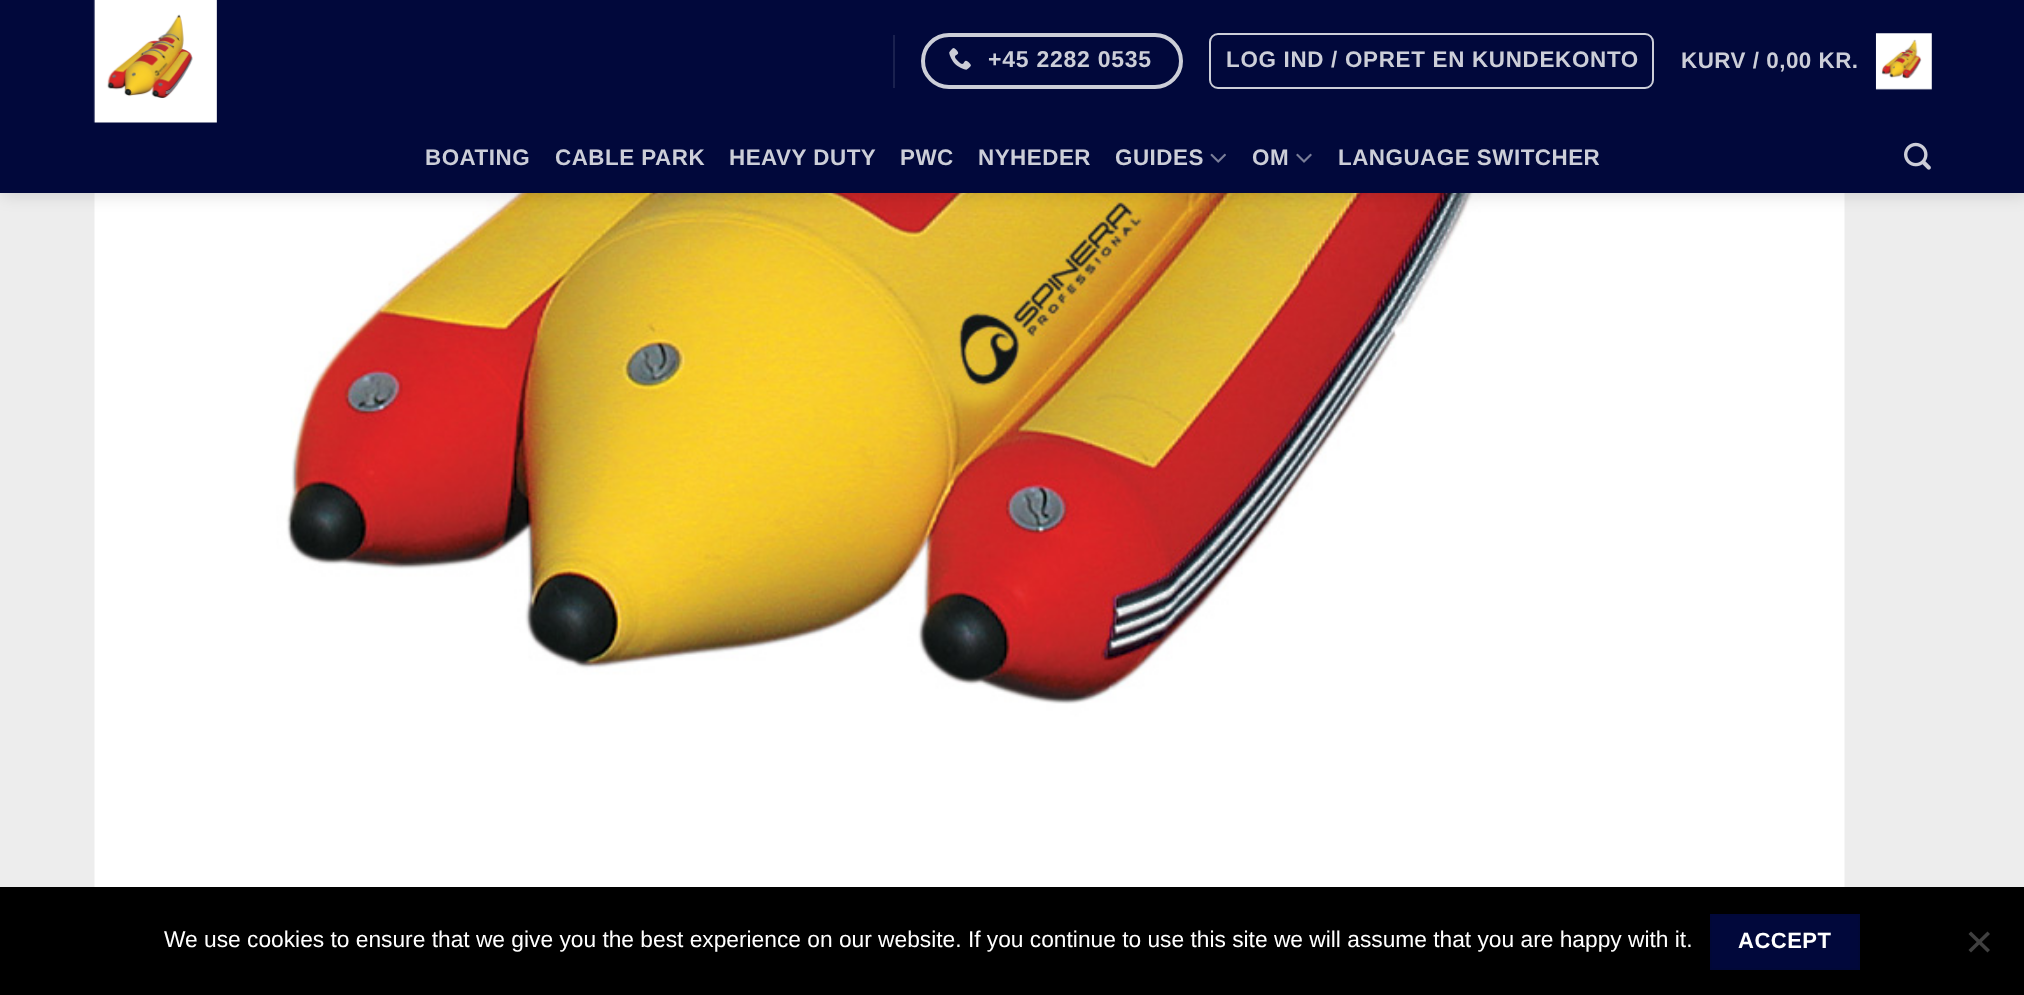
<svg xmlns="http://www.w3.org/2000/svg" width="2024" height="995">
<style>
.a{font:bold 23px Liberation Sans;letter-spacing:0.75px;fill:#ccced8}
.b{font:bold 22.4px Liberation Sans;letter-spacing:0.7px;fill:#ccced8}
.c{font:bold 22.4px Liberation Sans;letter-spacing:0.5px;fill:#ccced8}
.d{font:22.75px Liberation Sans;fill:#fff}
.e{font:bold 22px Liberation Sans;letter-spacing:0.5px;fill:#fff}
</style>
<rect width="100%" height="100%" fill="#ededed"/>
<image href="7.png" x="94" y="193" width="1751" height="694"/>
<path fill="#00000026" filter="blur(9px)" d="M2 2h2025v192H2z"/>
<path fill="#01083b" d="M0 0h2024v193H0z"/>
<image href="1.png" x="93" y="0" width="124" height="123"/>
<path fill="#1a214f" d="M893 35h2v53H893z"/>
<rect fill="none" stroke="#ccced8" stroke-width="4" x="923" y="35" width="258" height="52" rx="26"/>
<image href="2.png" x="949" y="48" width="22" height="22"/>
<rect fill="none" stroke="#ccced8" stroke-width="2" x="1210" y="34" width="443" height="54" rx="8"/>
<image href="3.png" x="1875" y="33" width="57" height="57"/>
<image href="4.png" x="1210" y="153" width="16" height="10"/>
<image href="5.png" x="1296" y="153" width="16" height="10"/>
<image href="6.png" x="1904" y="142" width="27" height="28"/>
<path fill="#000" d="M0 887h2024v108H0z"/>
<path fill="#01083b" stroke="#010838" stroke-width="2" d="M1711 915h148v54H1711z"/>
<path fill="#404040" d="M1987.5 931.5l2.5 2.5l-19 18.5l-2.5-2.5z"/>
<path fill="#404040" d="M1968.5 934l2.5-2.5l19 18.5l-2.5 2.5z"/>
<text class="a" x="988" y="67">+45 2282 0535</text>
<text class="b" x="1226" y="67">LOG IND / OPRET EN KUNDEKONTO</text>
<text class="c" x="1681" y="68">KURV / 0,00 KR.</text>
<text class="c" x="425" y="165">BOATING</text>
<text class="c" x="555" y="165">CABLE PARK</text>
<text class="c" x="729" y="165">HEAVY DUTY</text>
<text class="c" x="900" y="165">PWC</text>
<text class="c" x="978" y="165">NYHEDER</text>
<text class="c" x="1115" y="165">GUIDES</text>
<text class="c" x="1252" y="165">OM</text>
<text class="c" x="1338" y="165">LANGUAGE SWITCHER</text>
<text class="d" x="164" y="947">We use cookies to ensure that we give you the best experience on our website. If you continue to use this site we will assume that you are happy with it.</text>
<text class="e" x="1738" y="948">ACCEPT</text>
</svg>
